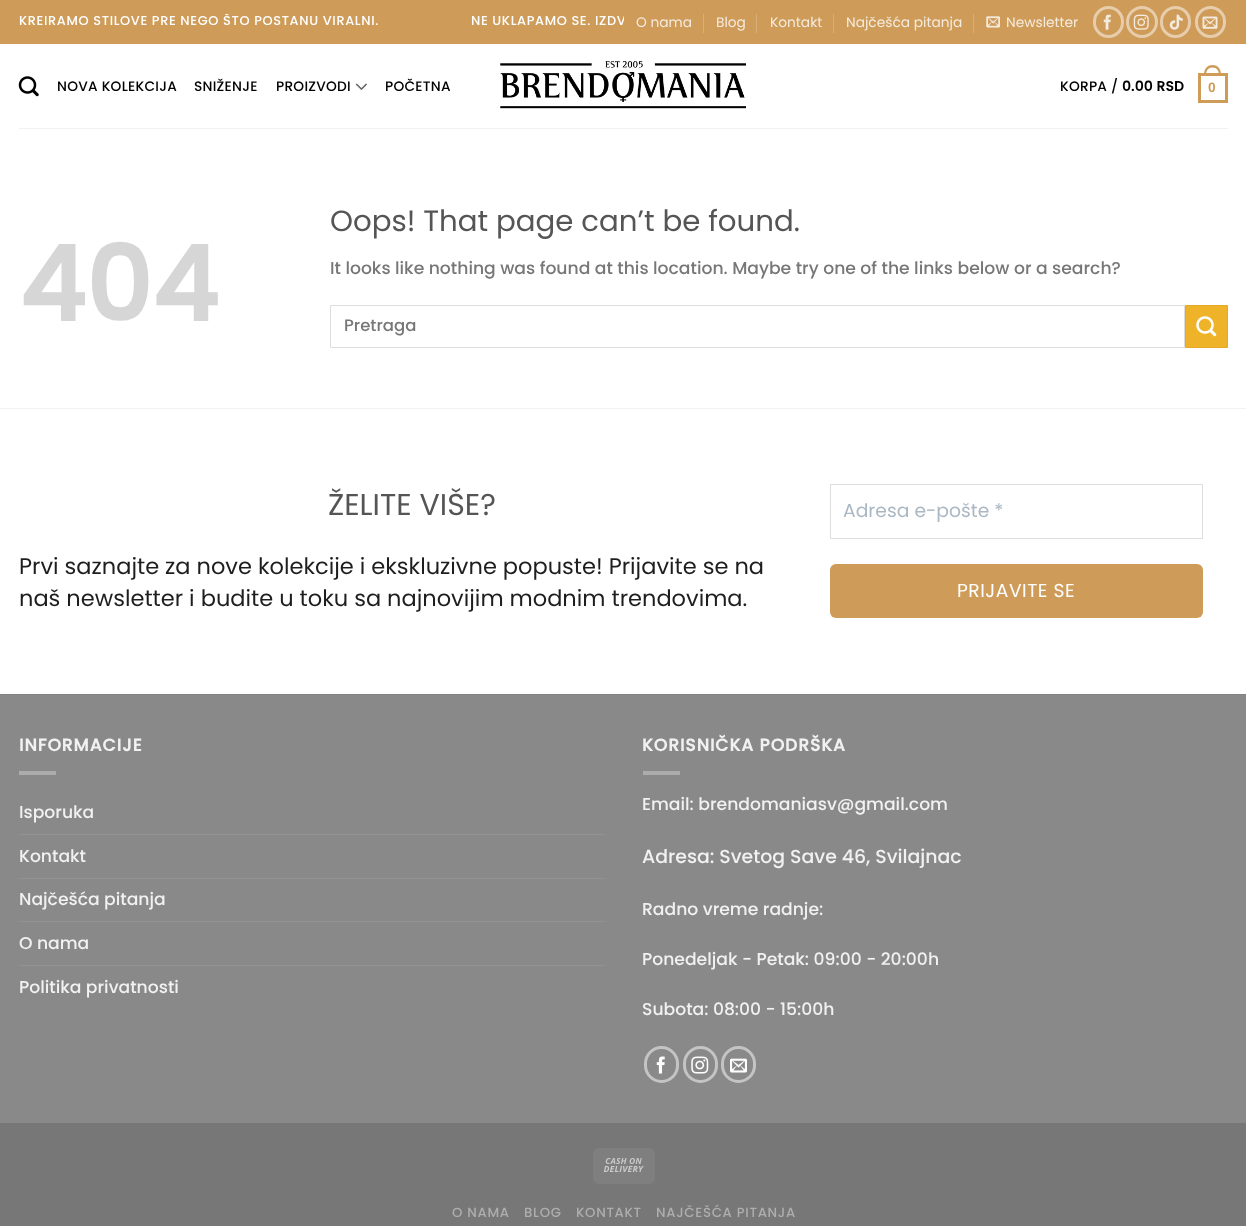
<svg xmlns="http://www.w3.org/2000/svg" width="1246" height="1226">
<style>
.a{font:500 12.9px Poppins;letter-spacing:0.65px;fill:#fff}
.b{font:13.75px Poppins;fill:#f5ebde}
.c{font:500 13.75px Poppins;letter-spacing:0.25px;fill:#000}
.d{font:bold 13.75px Poppins;letter-spacing:0.25px;fill:#000}
.e{font:bold 13.75px Liberation Sans;letter-spacing:0.25px;fill:#ce9b58}
.f{font:bold 103px Poppins;fill:#d6d6d6}
.g{font:29.25px Poppins;fill:#555}
.h{font:500 17.2px Poppins;fill:#777}
.i{font:500 16.5px Poppins;fill:#777}
.j{font:30px Poppins;fill:#555}
.k{font:22.5px Poppins;fill:#1e1e1e}
.l{font:18.75px Poppins;fill:#abb8c3}
.m{font:18.75px Poppins;letter-spacing:0.5px;fill:#fff}
.n{font:bold 17.2px Poppins;letter-spacing:0.9px;fill:#f1f1f1}
.o{font:500 17.2px Poppins;fill:#f1f1f1}
.p{font:500 18.9px Poppins;fill:#f1f1f1}
.q{font:500 13.25px Poppins;letter-spacing:0.7px;fill:#aeaeae}
</style>
<defs>
<clipPath id="clip1"><path d="M19 14h605v16H19z"/></clipPath>
</defs>
<rect width="100%" height="100%" fill="#fff"/>
<path fill="#ce9b58" d="M0 0h1246v44H0z"/>
<path fill="#d8af79" d="M703 14h1v19H703z"/>
<path fill="#d8af79" d="M756 14h1v19H756z"/>
<path fill="#d8af79" d="M833 14h1v19H833z"/>
<path fill="#d8af79" d="M973 14h1v19H973z"/>
<image href="1.png" x="986" y="16" width="14" height="12"/>
<rect fill="none" stroke="#e7cdac" stroke-width="3" x="1094.5" y="7.5" width="28" height="29" rx="14"/>
<image href="2.png" x="1103" y="14" width="8" height="16"/>
<circle fill="none" stroke="#e7cdac" stroke-width="3" cx="1142" cy="22" r="14.5"/>
<image href="3.png" x="1133" y="14" width="16" height="16"/>
<rect fill="none" stroke="#e7cdac" stroke-width="3" x="1161.5" y="7.5" width="28" height="29" rx="14"/>
<image href="4.png" x="1169" y="14" width="14" height="16"/>
<rect fill="none" stroke="#e7cdac" stroke-width="3" x="1196.5" y="7.5" width="28" height="29" rx="14"/>
<image href="5.png" x="1202" y="16" width="16" height="13"/>
<image href="6.png" x="18" y="76" width="21" height="21"/>
<image href="7.png" x="355" y="83" width="12" height="7"/>
<image href="8.png" x="500" y="61" width="246" height="48"/>
<path fill="none" stroke="#ce9b58" stroke-width="3" d="M1199.5 74.5h27v27H1199.5z"/>
<path fill="#ce9b58" fill-rule="evenodd" d="M1212.5 65c6 0 8.5 4.5 8.5 10h-17c0-5.5 2.5-10 8.5-10zm0 2.5c4.5 0 6.5 3.5 6.5 7.5h-13c0-4 2-7.5 6.5-7.5z"/>
<path fill="#f1f1f1" d="M19 128h1209v1H19z"/>
<path fill="none" stroke="#ddd" d="M330.5 305.5h854v42H330.5z"/>
<path fill="#eeb329" stroke="#e2aa27" d="M1185.5 305.5h42v42H1185.5z"/>
<image href="9.png" x="1196" y="316" width="21" height="21"/>
<path fill="#f2f2f2" d="M0 408h1246v1H0z"/>
<path fill="none" stroke="#ddd" d="M830.5 484.5h372v54H830.5z"/>
<rect fill="#ce9b58" x="830" y="564" width="373" height="54" rx="6"/>
<path fill="#898989" d="M0 695h1246v428H0z"/>
<path fill="#828282" d="M0 694h1246v1H0z"/>
<path fill="#acacac" d="M19 771h37v4H19z"/>
<path fill="#929292" d="M19 834h586v1H19z"/>
<path fill="#929292" d="M19 878h586v1H19z"/>
<path fill="#929292" d="M19 921h586v1H19z"/>
<path fill="#929292" d="M19 965h586v1H19z"/>
<path fill="#acacac" d="M643 771h37v4H643z"/>
<rect fill="none" stroke="#c4c4c4" stroke-width="3" x="645.5" y="1047.5" width="32" height="34" rx="16"/>
<image href="10.png" x="656" y="1056" width="9" height="18"/>
<rect fill="none" stroke="#c4c4c4" stroke-width="3" x="684.5" y="1047.5" width="32" height="34" rx="16"/>
<image href="11.png" x="691" y="1056" width="18" height="18"/>
<rect fill="none" stroke="#c4c4c4" stroke-width="3" x="722.5" y="1047.5" width="32" height="34" rx="16"/>
<image href="12.png" x="730" y="1058" width="17" height="15"/>
<path fill="#777" d="M0 1123h1246v103H0z"/>
<rect fill="#7f7f7f" x="593" y="1148" width="62" height="36" rx="6"/>
<image href="13.png" x="603" y="1158" width="41" height="14"/>
<g clip-path="url(#clip1)">
<text class="a" xml:space="preserve" x="19" y="25">KREIRAMO STILOVE PRE NEGO ŠTO POSTANU VIRALNI.                       NE UKLAPAMO SE. IZDV</text>
</g>
<text class="b" x="636" y="27">O nama</text>
<text class="b" x="716" y="27">Blog</text>
<text class="b" x="770" y="27">Kontakt</text>
<text class="b" x="846" y="27">Najčešća pitanja</text>
<text class="b" x="1006" y="27">Newsletter</text>
<text class="c" x="57" y="91">NOVA KOLEKCIJA</text>
<text class="c" x="194" y="91">SNIŽENJE</text>
<text class="c" x="276" y="91">PROIZVODI</text>
<text class="c" x="385" y="91">POČETNA</text>
<text class="c" x="1060" y="91">KORPA /</text>
<text class="d" x="1122" y="91">0.00 RSD</text>
<text class="e" x="1208" y="92">0</text>
<text class="f" x="19" y="321">404</text>
<text class="g" x="330" y="231">Oops! That page can’t be found.</text>
<text class="h" x="330" y="274">It looks like nothing was found at this location. Maybe try one of the links below or a search?</text>
<text class="i" x="344" y="331">Pretraga</text>
<text class="j" x="328" y="515">ŽELITE VIŠE?</text>
<text class="k" x="19" y="574">Prvi saznajte za nove kolekcije i ekskluzivne popuste! Prijavite se na</text>
<text class="k" x="19" y="606">naš newsletter i budite u toku sa najnovijim modnim trendovima.</text>
<text class="l" x="843" y="517">Adresa e-pošte *</text>
<text class="m" x="957" y="597">PRIJAVITE SE</text>
<text class="n" x="19" y="751">INFORMACIJE</text>
<text class="o" x="19" y="818">Isporuka</text>
<text class="o" x="19" y="862">Kontakt</text>
<text class="o" x="19" y="905">Najčešća pitanja</text>
<text class="o" x="19" y="949">O nama</text>
<text class="o" x="19" y="993">Politika privatnosti</text>
<text class="n" x="642" y="751">KORISNIČKA PODRŠKA</text>
<text class="o" x="642" y="810">Email: brendomaniasv@gmail.com</text>
<text class="p" x="642" y="863">Adresa: Svetog Save 46, Svilajnac</text>
<text class="o" x="642" y="915">Radno vreme radnje:</text>
<text class="o" x="642" y="965">Ponedeljak - Petak: 09:00 - 20:00h</text>
<text class="o" x="642" y="1015">Subota: 08:00 - 15:00h</text>
<text class="q" x="452" y="1217">O NAMA</text>
<text class="q" x="524" y="1217">BLOG</text>
<text class="q" x="576" y="1217">KONTAKT</text>
<text class="q" x="656" y="1217">NAJČEŠĆA PITANJA</text>
</svg>
